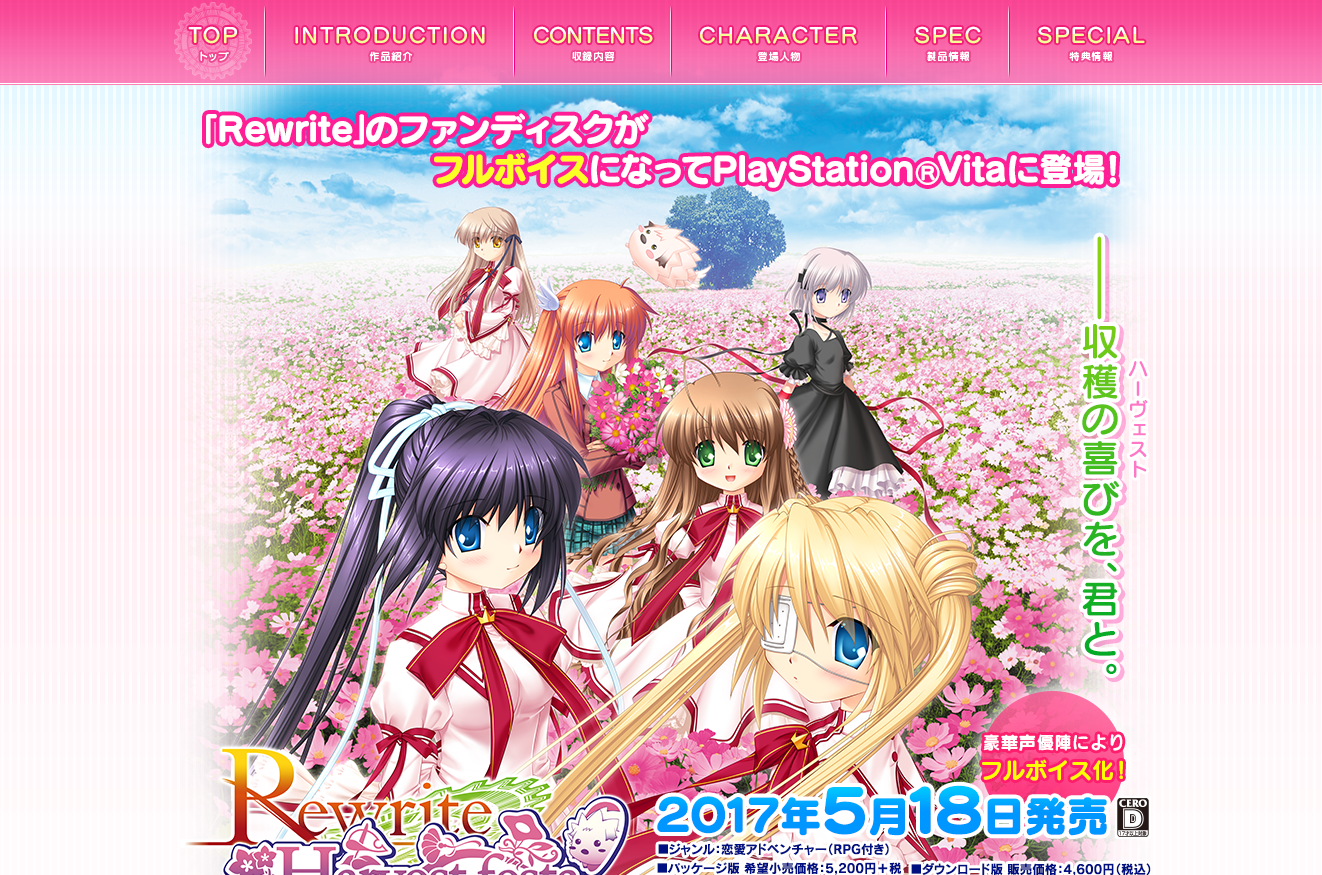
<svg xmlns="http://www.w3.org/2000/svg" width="1322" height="875">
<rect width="100%" height="100%" fill="#fff"/>
<image href="1.png" x="0" y="0" width="1322" height="875"/>
<image href="2.png" x="180" y="39" width="971" height="836"/>
<image href="3.png" x="0" y="0" width="1322" height="85"/>
<image href="4.png" x="174" y="2" width="92" height="78"/>
<image href="5.png" x="293" y="6" width="222" height="71"/>
<image href="6.png" x="532" y="6" width="140" height="71"/>
<image href="7.png" x="698" y="6" width="189" height="71"/>
<image href="8.png" x="913" y="6" width="97" height="71"/>
<image href="9.png" x="1036" y="24" width="111" height="39"/>
</svg>
